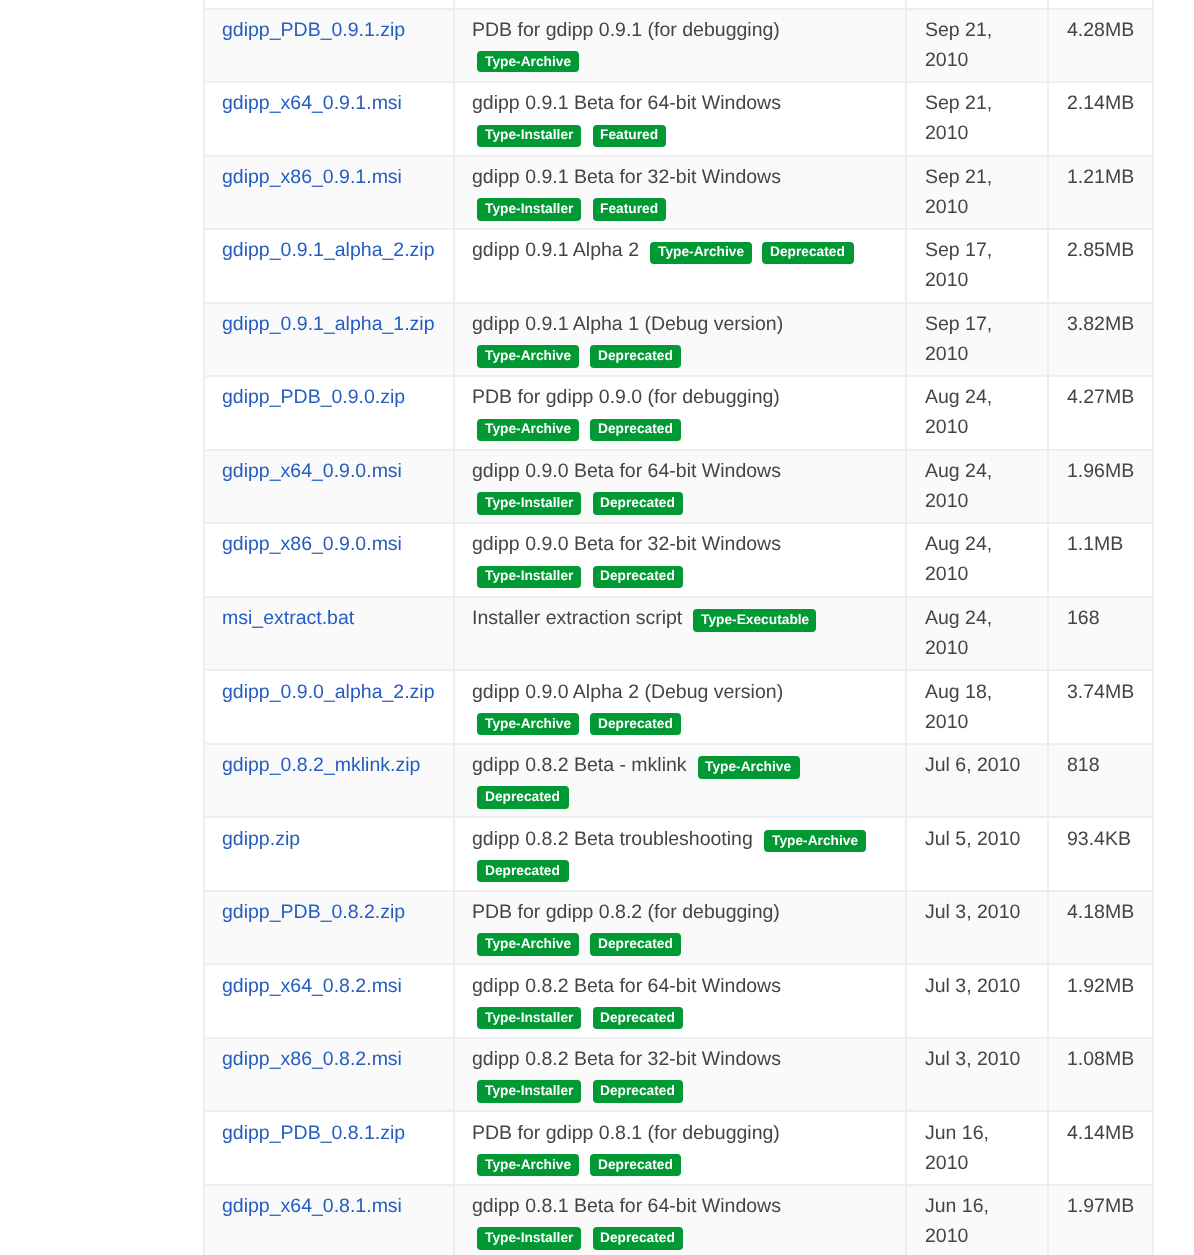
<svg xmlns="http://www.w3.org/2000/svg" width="1194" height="1255">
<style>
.a{font:19.5px Liberation Sans;fill:#245dc1}
.b{font:19.5px Liberation Sans;fill:#444}
.c{font:bold 13.75px Liberation Sans;fill:#fff}
</style>
<rect width="100%" height="100%" fill="#fff"/>
<path fill="#eee" d="M1047 8h107v2H1047z"/>
<path fill="#fafafa" d="M205 10h947v71H205z"/>
<path fill="#eee" d="M1047 81h107v2H1047z"/>
<path fill="#eee" d="M1047 155h107v2H1047z"/>
<path fill="#fafafa" d="M205 157h947v71H205z"/>
<path fill="#eee" d="M1047 228h107v2H1047z"/>
<path fill="#eee" d="M1047 302h107v2H1047z"/>
<path fill="#fafafa" d="M205 304h947v71H205z"/>
<path fill="#eee" d="M1047 375h107v2H1047z"/>
<path fill="#eee" d="M1047 449h107v2H1047z"/>
<path fill="#fafafa" d="M205 451h947v71H205z"/>
<path fill="#eee" d="M1047 522h107v2H1047z"/>
<path fill="#eee" d="M1047 596h107v2H1047z"/>
<path fill="#fafafa" d="M205 598h947v71H205z"/>
<path fill="#eee" d="M1047 669h107v2H1047z"/>
<path fill="#eee" d="M1047 743h107v2H1047z"/>
<path fill="#fafafa" d="M205 745h947v71H205z"/>
<path fill="#eee" d="M1047 816h107v2H1047z"/>
<path fill="#eee" d="M1047 890h107v2H1047z"/>
<path fill="#fafafa" d="M205 892h947v71H205z"/>
<path fill="#eee" d="M1047 963h107v2H1047z"/>
<path fill="#eee" d="M1047 1037h107v2H1047z"/>
<path fill="#fafafa" d="M205 1039h947v71H205z"/>
<path fill="#eee" d="M1047 1110h107v2H1047z"/>
<path fill="#eee" d="M1047 1184h107v2H1047z"/>
<path fill="#fafafa" d="M205 1186h947v69H205z"/>
<path fill="#eee" d="M1047 1184h2v71H1047z"/>
<path fill="#eee" d="M905 1184h144v2H905z"/>
<path fill="#eee" d="M1047 1110h2v75H1047z"/>
<path fill="#eee" d="M905 1110h144v2H905z"/>
<path fill="#eee" d="M1047 1037h2v75H1047z"/>
<path fill="#eee" d="M905 1037h144v2H905z"/>
<path fill="#eee" d="M1047 963h2v75H1047z"/>
<path fill="#eee" d="M905 963h144v2H905z"/>
<path fill="#eee" d="M1047 890h2v75H1047z"/>
<path fill="#eee" d="M905 890h144v2H905z"/>
<path fill="#eee" d="M1047 816h2v75H1047z"/>
<path fill="#eee" d="M905 816h144v2H905z"/>
<path fill="#eee" d="M1047 743h2v75H1047z"/>
<path fill="#eee" d="M905 743h144v2H905z"/>
<path fill="#eee" d="M1047 669h2v75H1047z"/>
<path fill="#eee" d="M905 669h144v2H905z"/>
<path fill="#eee" d="M1047 596h2v75H1047z"/>
<path fill="#eee" d="M905 596h144v2H905z"/>
<path fill="#eee" d="M1047 522h2v75H1047z"/>
<path fill="#eee" d="M905 522h144v2H905z"/>
<path fill="#eee" d="M1047 449h2v75H1047z"/>
<path fill="#eee" d="M905 449h144v2H905z"/>
<path fill="#eee" d="M1047 375h2v75H1047z"/>
<path fill="#eee" d="M905 375h144v2H905z"/>
<path fill="#eee" d="M1047 302h2v75H1047z"/>
<path fill="#eee" d="M905 302h144v2H905z"/>
<path fill="#eee" d="M1047 228h2v75H1047z"/>
<path fill="#eee" d="M905 228h144v2H905z"/>
<path fill="#eee" d="M1047 155h2v75H1047z"/>
<path fill="#eee" d="M905 155h144v2H905z"/>
<path fill="#eee" d="M1047 81h2v75H1047z"/>
<path fill="#eee" d="M905 81h144v2H905z"/>
<path fill="#eee" d="M1047 8h2v75H1047z"/>
<path fill="#eee" d="M905 8h144v2H905z"/>
<path fill="#eee" d="M905 1184h2v71H905z"/>
<path fill="#eee" d="M453 1184h453v2H453z"/>
<path fill="#eee" d="M905 1110h2v75H905z"/>
<path fill="#eee" d="M453 1110h453v2H453z"/>
<path fill="#eee" d="M905 1037h2v75H905z"/>
<path fill="#eee" d="M453 1037h453v2H453z"/>
<path fill="#eee" d="M905 963h2v75H905z"/>
<path fill="#eee" d="M453 963h453v2H453z"/>
<path fill="#eee" d="M905 890h2v75H905z"/>
<path fill="#eee" d="M453 890h453v2H453z"/>
<path fill="#eee" d="M905 816h2v75H905z"/>
<path fill="#eee" d="M453 816h453v2H453z"/>
<path fill="#eee" d="M905 743h2v75H905z"/>
<path fill="#eee" d="M453 743h453v2H453z"/>
<path fill="#eee" d="M905 669h2v75H905z"/>
<path fill="#eee" d="M453 669h453v2H453z"/>
<path fill="#eee" d="M905 596h2v75H905z"/>
<path fill="#eee" d="M453 596h453v2H453z"/>
<path fill="#eee" d="M905 522h2v75H905z"/>
<path fill="#eee" d="M453 522h453v2H453z"/>
<path fill="#eee" d="M905 449h2v75H905z"/>
<path fill="#eee" d="M453 449h453v2H453z"/>
<path fill="#eee" d="M905 375h2v75H905z"/>
<path fill="#eee" d="M453 375h453v2H453z"/>
<path fill="#eee" d="M905 302h2v75H905z"/>
<path fill="#eee" d="M453 302h453v2H453z"/>
<path fill="#eee" d="M905 228h2v75H905z"/>
<path fill="#eee" d="M453 228h453v2H453z"/>
<path fill="#eee" d="M905 155h2v75H905z"/>
<path fill="#eee" d="M453 155h453v2H453z"/>
<path fill="#eee" d="M905 81h2v75H905z"/>
<path fill="#eee" d="M453 81h453v2H453z"/>
<path fill="#eee" d="M905 8h2v75H905z"/>
<path fill="#eee" d="M453 8h453v2H453z"/>
<path fill="#eee" d="M453 1184h2v71H453z"/>
<path fill="#eee" d="M203 1184h252v2H203z"/>
<path fill="#eee" d="M453 1110h2v75H453z"/>
<path fill="#eee" d="M203 1110h252v2H203z"/>
<path fill="#eee" d="M453 1037h2v75H453z"/>
<path fill="#eee" d="M203 1037h252v2H203z"/>
<path fill="#eee" d="M453 963h2v75H453z"/>
<path fill="#eee" d="M203 963h252v2H203z"/>
<path fill="#eee" d="M453 890h2v75H453z"/>
<path fill="#eee" d="M203 890h252v2H203z"/>
<path fill="#eee" d="M453 816h2v75H453z"/>
<path fill="#eee" d="M203 816h252v2H203z"/>
<path fill="#eee" d="M453 743h2v75H453z"/>
<path fill="#eee" d="M203 743h252v2H203z"/>
<path fill="#eee" d="M453 669h2v75H453z"/>
<path fill="#eee" d="M203 669h252v2H203z"/>
<path fill="#eee" d="M453 596h2v75H453z"/>
<path fill="#eee" d="M203 596h252v2H203z"/>
<path fill="#eee" d="M453 522h2v75H453z"/>
<path fill="#eee" d="M203 522h252v2H203z"/>
<path fill="#eee" d="M453 449h2v75H453z"/>
<path fill="#eee" d="M203 449h252v2H203z"/>
<path fill="#eee" d="M453 375h2v75H453z"/>
<path fill="#eee" d="M203 375h252v2H203z"/>
<path fill="#eee" d="M453 302h2v75H453z"/>
<path fill="#eee" d="M203 302h252v2H203z"/>
<path fill="#eee" d="M453 228h2v75H453z"/>
<path fill="#eee" d="M203 228h252v2H203z"/>
<path fill="#eee" d="M453 155h2v75H453z"/>
<path fill="#eee" d="M203 155h252v2H203z"/>
<path fill="#eee" d="M453 81h2v75H453z"/>
<path fill="#eee" d="M203 81h252v2H203z"/>
<path fill="#eee" d="M453 8h2v75H453z"/>
<path fill="#eee" d="M203 8h252v2H203z"/>
<path fill="#eee" d="M453 0h2v9H453z"/>
<path fill="#eee" d="M905 0h2v9H905z"/>
<path fill="#eee" d="M1047 0h2v9H1047z"/>
<path fill="#eee" d="M203 1184h2v71H203z"/>
<path fill="#eee" d="M203 1110h2v75H203z"/>
<path fill="#eee" d="M203 1037h2v75H203z"/>
<path fill="#eee" d="M203 963h2v75H203z"/>
<path fill="#eee" d="M203 890h2v75H203z"/>
<path fill="#eee" d="M203 816h2v75H203z"/>
<path fill="#eee" d="M203 743h2v75H203z"/>
<path fill="#eee" d="M203 669h2v75H203z"/>
<path fill="#eee" d="M203 596h2v75H203z"/>
<path fill="#eee" d="M203 522h2v75H203z"/>
<path fill="#eee" d="M203 449h2v75H203z"/>
<path fill="#eee" d="M203 375h2v75H203z"/>
<path fill="#eee" d="M203 302h2v75H203z"/>
<path fill="#eee" d="M203 228h2v75H203z"/>
<path fill="#eee" d="M203 155h2v75H203z"/>
<path fill="#eee" d="M203 81h2v75H203z"/>
<path fill="#eee" d="M203 0h2v83H203z"/>
<rect fill="#093" x="477" y="51" width="102" height="21" rx="4"/>
<path fill="#eee" d="M1152 1184h2v71H1152z"/>
<path fill="#eee" d="M1152 1110h2v75H1152z"/>
<path fill="#eee" d="M1152 1037h2v75H1152z"/>
<path fill="#eee" d="M1152 963h2v75H1152z"/>
<path fill="#eee" d="M1152 890h2v75H1152z"/>
<path fill="#eee" d="M1152 816h2v75H1152z"/>
<path fill="#eee" d="M1152 743h2v75H1152z"/>
<path fill="#eee" d="M1152 669h2v75H1152z"/>
<path fill="#eee" d="M1152 596h2v75H1152z"/>
<path fill="#eee" d="M1152 522h2v75H1152z"/>
<path fill="#eee" d="M1152 449h2v75H1152z"/>
<path fill="#eee" d="M1152 375h2v75H1152z"/>
<path fill="#eee" d="M1152 302h2v75H1152z"/>
<path fill="#eee" d="M1152 228h2v75H1152z"/>
<path fill="#eee" d="M1152 155h2v75H1152z"/>
<path fill="#eee" d="M1152 81h2v75H1152z"/>
<path fill="#eee" d="M1152 0h2v83H1152z"/>
<rect fill="#093" x="477" y="125" width="104" height="22" rx="4"/>
<rect fill="#093" x="593" y="125" width="73" height="22" rx="4"/>
<rect fill="#093" x="477" y="198" width="104" height="23" rx="4"/>
<rect fill="#093" x="593" y="198" width="73" height="23" rx="4"/>
<rect fill="#093" x="650" y="242" width="102" height="22" rx="4"/>
<rect fill="#093" x="762" y="242" width="92" height="22" rx="4"/>
<rect fill="#093" x="477" y="345" width="102" height="23" rx="4"/>
<rect fill="#093" x="590" y="345" width="91" height="23" rx="4"/>
<rect fill="#093" x="477" y="419" width="102" height="22" rx="4"/>
<rect fill="#093" x="590" y="419" width="91" height="22" rx="4"/>
<rect fill="#093" x="477" y="492" width="104" height="23" rx="4"/>
<rect fill="#093" x="593" y="492" width="90" height="23" rx="4"/>
<rect fill="#093" x="477" y="566" width="104" height="22" rx="4"/>
<rect fill="#093" x="593" y="566" width="90" height="22" rx="4"/>
<rect fill="#093" x="693" y="609" width="123" height="23" rx="4"/>
<rect fill="#093" x="477" y="713" width="102" height="22" rx="4"/>
<rect fill="#093" x="590" y="713" width="91" height="22" rx="4"/>
<rect fill="#093" x="698" y="756" width="102" height="23" rx="4"/>
<rect fill="#093" x="477" y="786" width="92" height="23" rx="4"/>
<rect fill="#093" x="764" y="830" width="102" height="22" rx="4"/>
<rect fill="#093" x="477" y="860" width="92" height="22" rx="4"/>
<rect fill="#093" x="477" y="933" width="102" height="23" rx="4"/>
<rect fill="#093" x="590" y="933" width="91" height="23" rx="4"/>
<rect fill="#093" x="477" y="1007" width="104" height="22" rx="4"/>
<rect fill="#093" x="593" y="1007" width="90" height="22" rx="4"/>
<rect fill="#093" x="477" y="1080" width="104" height="23" rx="4"/>
<rect fill="#093" x="593" y="1080" width="90" height="23" rx="4"/>
<rect fill="#093" x="477" y="1154" width="102" height="22" rx="4"/>
<rect fill="#093" x="590" y="1154" width="91" height="22" rx="4"/>
<rect fill="#093" x="477" y="1227" width="104" height="23" rx="4"/>
<rect fill="#093" x="593" y="1227" width="90" height="23" rx="4"/>
<text class="a" x="222" y="36">gdipp_PDB_0.9.1.zip</text>
<text class="b" x="472" y="36">PDB for gdipp 0.9.1 (for debugging)</text>
<text class="c" x="485" y="66">Type-Archive</text>
<text class="b" x="925" y="36">Sep 21,</text>
<text class="b" x="925" y="66">2010</text>
<text class="b" x="1067" y="36">4.28MB</text>
<text class="a" x="222" y="109">gdipp_x64_0.9.1.msi</text>
<text class="b" x="472" y="109">gdipp 0.9.1 Beta for 64-bit Windows</text>
<text class="c" x="485" y="139">Type-Installer</text>
<text class="c" x="600" y="139">Featured</text>
<text class="b" x="925" y="109">Sep 21,</text>
<text class="b" x="925" y="139">2010</text>
<text class="b" x="1067" y="109">2.14MB</text>
<text class="a" x="222" y="183">gdipp_x86_0.9.1.msi</text>
<text class="b" x="472" y="183">gdipp 0.9.1 Beta for 32-bit Windows</text>
<text class="c" x="485" y="213">Type-Installer</text>
<text class="c" x="600" y="213">Featured</text>
<text class="b" x="925" y="183">Sep 21,</text>
<text class="b" x="925" y="213">2010</text>
<text class="b" x="1067" y="183">1.21MB</text>
<text class="a" x="222" y="256">gdipp_0.9.1_alpha_2.zip</text>
<text class="b" x="472" y="256">gdipp 0.9.1 Alpha 2</text>
<text class="c" x="658" y="256">Type-Archive</text>
<text class="c" x="770" y="256">Deprecated</text>
<text class="b" x="925" y="256">Sep 17,</text>
<text class="b" x="925" y="286">2010</text>
<text class="b" x="1067" y="256">2.85MB</text>
<text class="a" x="222" y="330">gdipp_0.9.1_alpha_1.zip</text>
<text class="b" x="472" y="330">gdipp 0.9.1 Alpha 1 (Debug version)</text>
<text class="c" x="485" y="360">Type-Archive</text>
<text class="c" x="598" y="360">Deprecated</text>
<text class="b" x="925" y="330">Sep 17,</text>
<text class="b" x="925" y="360">2010</text>
<text class="b" x="1067" y="330">3.82MB</text>
<text class="a" x="222" y="403">gdipp_PDB_0.9.0.zip</text>
<text class="b" x="472" y="403">PDB for gdipp 0.9.0 (for debugging)</text>
<text class="c" x="485" y="433">Type-Archive</text>
<text class="c" x="598" y="433">Deprecated</text>
<text class="b" x="925" y="403">Aug 24,</text>
<text class="b" x="925" y="433">2010</text>
<text class="b" x="1067" y="403">4.27MB</text>
<text class="a" x="222" y="477">gdipp_x64_0.9.0.msi</text>
<text class="b" x="472" y="477">gdipp 0.9.0 Beta for 64-bit Windows</text>
<text class="c" x="485" y="507">Type-Installer</text>
<text class="c" x="600" y="507">Deprecated</text>
<text class="b" x="925" y="477">Aug 24,</text>
<text class="b" x="925" y="507">2010</text>
<text class="b" x="1067" y="477">1.96MB</text>
<text class="a" x="222" y="550">gdipp_x86_0.9.0.msi</text>
<text class="b" x="472" y="550">gdipp 0.9.0 Beta for 32-bit Windows</text>
<text class="c" x="485" y="580">Type-Installer</text>
<text class="c" x="600" y="580">Deprecated</text>
<text class="b" x="925" y="550">Aug 24,</text>
<text class="b" x="925" y="580">2010</text>
<text class="b" x="1067" y="550">1.1MB</text>
<text class="a" x="222" y="624">msi_extract.bat</text>
<text class="b" x="472" y="624">Installer extraction script</text>
<text class="c" x="701" y="624">Type-Executable</text>
<text class="b" x="925" y="624">Aug 24,</text>
<text class="b" x="925" y="654">2010</text>
<text class="b" x="1067" y="624">168</text>
<text class="a" x="222" y="698">gdipp_0.9.0_alpha_2.zip</text>
<text class="b" x="472" y="698">gdipp 0.9.0 Alpha 2 (Debug version)</text>
<text class="c" x="485" y="728">Type-Archive</text>
<text class="c" x="598" y="728">Deprecated</text>
<text class="b" x="925" y="698">Aug 18,</text>
<text class="b" x="925" y="728">2010</text>
<text class="b" x="1067" y="698">3.74MB</text>
<text class="a" x="222" y="771">gdipp_0.8.2_mklink.zip</text>
<text class="b" x="472" y="771">gdipp 0.8.2 Beta - mklink</text>
<text class="c" x="705" y="771">Type-Archive</text>
<text class="c" x="485" y="801">Deprecated</text>
<text class="b" x="925" y="771">Jul 6, 2010</text>
<text class="b" x="1067" y="771">818</text>
<text class="a" x="222" y="845">gdipp.zip</text>
<text class="b" x="472" y="845">gdipp 0.8.2 Beta troubleshooting</text>
<text class="c" x="772" y="845">Type-Archive</text>
<text class="c" x="485" y="875">Deprecated</text>
<text class="b" x="925" y="845">Jul 5, 2010</text>
<text class="b" x="1067" y="845">93.4KB</text>
<text class="a" x="222" y="918">gdipp_PDB_0.8.2.zip</text>
<text class="b" x="472" y="918">PDB for gdipp 0.8.2 (for debugging)</text>
<text class="c" x="485" y="948">Type-Archive</text>
<text class="c" x="598" y="948">Deprecated</text>
<text class="b" x="925" y="918">Jul 3, 2010</text>
<text class="b" x="1067" y="918">4.18MB</text>
<text class="a" x="222" y="992">gdipp_x64_0.8.2.msi</text>
<text class="b" x="472" y="992">gdipp 0.8.2 Beta for 64-bit Windows</text>
<text class="c" x="485" y="1022">Type-Installer</text>
<text class="c" x="600" y="1022">Deprecated</text>
<text class="b" x="925" y="992">Jul 3, 2010</text>
<text class="b" x="1067" y="992">1.92MB</text>
<text class="a" x="222" y="1065">gdipp_x86_0.8.2.msi</text>
<text class="b" x="472" y="1065">gdipp 0.8.2 Beta for 32-bit Windows</text>
<text class="c" x="485" y="1095">Type-Installer</text>
<text class="c" x="600" y="1095">Deprecated</text>
<text class="b" x="925" y="1065">Jul 3, 2010</text>
<text class="b" x="1067" y="1065">1.08MB</text>
<text class="a" x="222" y="1139">gdipp_PDB_0.8.1.zip</text>
<text class="b" x="472" y="1139">PDB for gdipp 0.8.1 (for debugging)</text>
<text class="c" x="485" y="1169">Type-Archive</text>
<text class="c" x="598" y="1169">Deprecated</text>
<text class="b" x="925" y="1139">Jun 16,</text>
<text class="b" x="925" y="1169">2010</text>
<text class="b" x="1067" y="1139">4.14MB</text>
<text class="a" x="222" y="1212">gdipp_x64_0.8.1.msi</text>
<text class="b" x="472" y="1212">gdipp 0.8.1 Beta for 64-bit Windows</text>
<text class="c" x="485" y="1242">Type-Installer</text>
<text class="c" x="600" y="1242">Deprecated</text>
<text class="b" x="925" y="1212">Jun 16,</text>
<text class="b" x="925" y="1242">2010</text>
<text class="b" x="1067" y="1212">1.97MB</text>
</svg>
